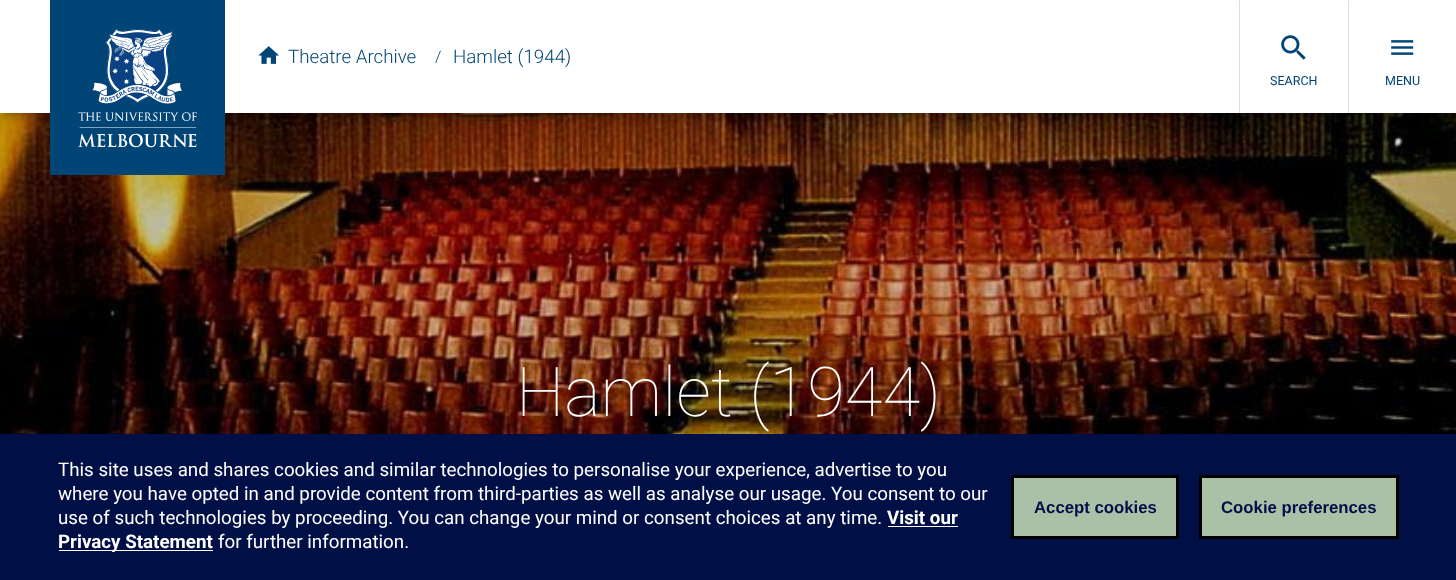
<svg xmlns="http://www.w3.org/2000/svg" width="1456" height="580">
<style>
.a{font:300 18.75px Roboto;fill:#004576}
.b{font:300 16px Roboto;fill:#004576}
.c{font:12.5px Roboto;fill:#004576}
.d{font:100 68.75px Roboto;fill:#fff}
.e{font:18.75px Roboto;fill:#fff}
.f{font:bold 18.75px Roboto;fill:#fff}
.g{font:bold 16.75px Liberation Sans;fill:#000f46}
</style>
<rect width="100%" height="100%" fill="#fff"/>
<image href="5.png" x="0" y="113" width="1456" height="321"/>
<path fill="#0000004d" filter="blur(4px)" d="M4 11h1449v105H4z"/>
<path fill="#fff" d="M0 4h1456v109H0z"/>
<path fill="#004576" d="M50 0h175v175H50z"/>
<image href="1.png" x="78" y="28" width="119" height="120"/>
<image href="2.png" x="258" y="46" width="21" height="18"/>
<path fill="#ddd" d="M1239 0h1v113H1239z"/>
<image href="3.png" x="1281" y="35" width="25" height="25"/>
<path fill="#ddd" d="M1348 0h1v113H1348z"/>
<image href="4.png" x="1391" y="40" width="23" height="15"/>
<path fill="#000f46" d="M0 434h1456v146H0z"/>
<path fill="#fff" d="M888 526h70v1H888z"/>
<path fill="#fff" d="M59 550h154v1H59z"/>
<path fill="#abc1a7" stroke="#000" stroke-width="3" d="M1012.5 476.5h165v61H1012.5z"/>
<path fill="#abc1a7" stroke="#000" stroke-width="3" d="M1200.5 476.5h197v61H1200.5z"/>
<text class="a" x="288" y="63">Theatre Archive</text>
<text class="b" x="435" y="62">/</text>
<text class="a" x="453" y="63">Hamlet (1944)</text>
<text class="c" x="1270" y="85">SEARCH</text>
<text class="c" x="1385" y="85">MENU</text>
<text class="d" x="516" y="416">Hamlet (1944)</text>
<text class="e" x="58" y="476">This site uses and shares cookies and similar technologies to personalise your experience, advertise to you</text>
<text class="e" x="58" y="500">where you have opted in and provide content from third-parties as well as analyse our usage. You consent to our</text>
<text class="e" x="58" y="524">use of such technologies by proceeding. You can change your mind or consent choices at any time.</text>
<text class="f" x="887" y="524">Visit our</text>
<text class="f" x="58" y="548">Privacy Statement</text>
<text class="e" x="218" y="548">for further information.</text>
<text class="g" x="1034" y="513">Accept cookies</text>
<text class="g" x="1221" y="513">Cookie preferences</text>
</svg>
